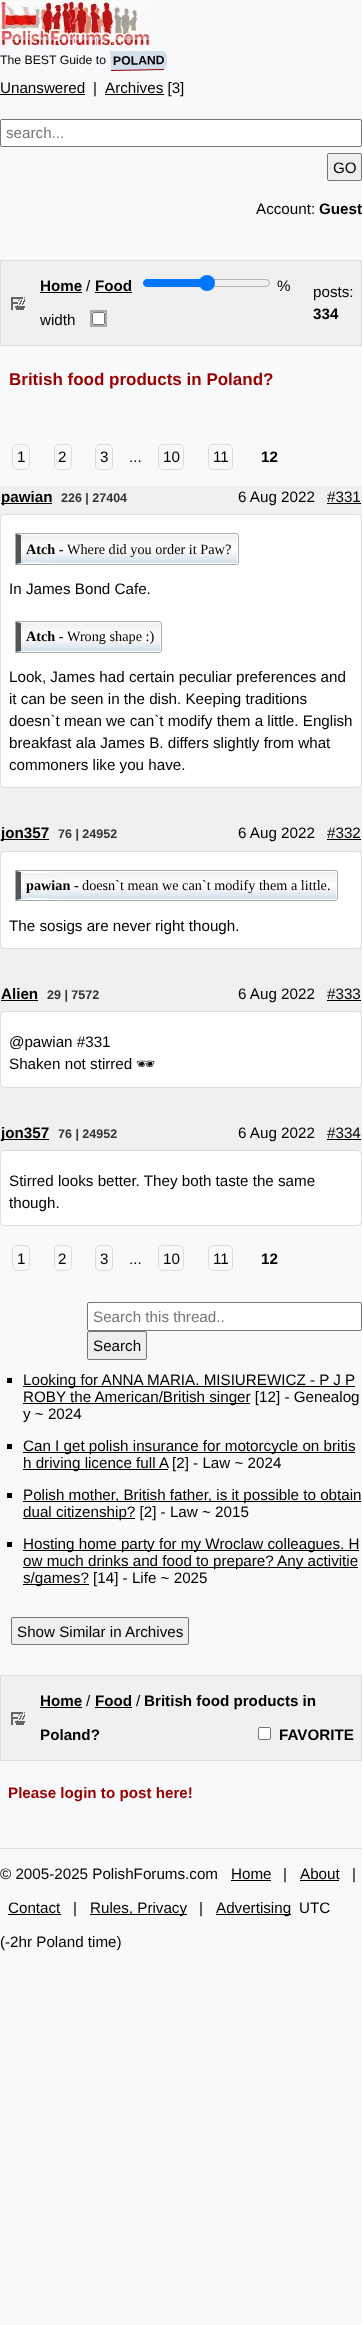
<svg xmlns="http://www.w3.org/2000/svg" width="362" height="2325">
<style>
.a{font:12.25px Liberation Sans;fill:#000}
.b{font:bold 12.25px Liberation Sans;fill:#000}
.c{font:15.2px Liberation Sans;fill:#000}
.d{font:15.2px Liberation Sans;fill:#757575}
.e{font:bold 15.2px Liberation Sans;fill:#000}
.f{font:bold 17px Liberation Sans;fill:#900}
.g{font:bold 12.5px Liberation Sans;fill:#333}
.h{font:bold 14.25px Liberation Serif;fill:#000}
.i{font:14.25px Liberation Serif;fill:#000}
.j{font:15.2px Noto Emoji;fill:#000}
.k{font:bold 15.2px Liberation Sans;fill:#900}
</style>
<defs>
<linearGradient id="g1" gradientUnits="userSpaceOnUse" x1="129" y1="535" x2="129" y2="563"><stop offset="0" stop-color="#f0f0f0"/><stop offset="0.5" stop-color="#fff"/><stop offset="1" stop-color="#d4dfea"/></linearGradient>
<linearGradient id="g2" gradientUnits="userSpaceOnUse" x1="91" y1="623" x2="91" y2="651"><stop offset="0" stop-color="#f0f0f0"/><stop offset="0.5" stop-color="#fff"/><stop offset="1" stop-color="#d4dfea"/></linearGradient>
<linearGradient id="g3" gradientUnits="userSpaceOnUse" x1="179" y1="872" x2="179" y2="899"><stop offset="0" stop-color="#f0f0f0"/><stop offset="0.5" stop-color="#fff"/><stop offset="1" stop-color="#d4dfea"/></linearGradient>
</defs>
<rect width="100%" height="100%" fill="#f7f9fb"/>
<image href="1.png" x="0" y="1" width="152" height="48"/>
<path fill="#d4dfea" d="M110 51h52c2 0 5 2 5 5v9c0 3-2 5-5 5l-51 1z"/>
<path fill="#900" d="M111 70l53-1v1l-53 1z"/>
<path fill="#000" d="M0 94h85v1H0z"/>
<path fill="#000" d="M105 94h59v1H105z"/>
<rect fill="#fff" stroke="#767676" x="0.5" y="119.5" width="361" height="27" rx="1.5"/>
<rect fill="#efefef" stroke="#767676" x="327.5" y="153.5" width="34" height="27" rx="1.5"/>
<path fill="#ddd" d="M0 260h362v1H0z"/>
<path fill="#ddd" d="M361 260h1v86H361z"/>
<path fill="#ddd" d="M0 345h362v1H0z"/>
<path fill="#ddd" d="M0 260h1v86H0z"/>
<path fill="#f0f0f0" d="M1 261h360v84H1z"/>
<image href="2.png" x="11" y="297" width="14" height="13"/>
<path fill="#000" d="M40 292h42v1H40z"/>
<path fill="#000" d="M95 292h37v1H95z"/>
<rect fill="none" stroke="#b2b2b2" x="143.5" y="279.5" width="126" height="7" rx="3.5"/>
<path fill="#0075ff" d="M147 279h60v8h-60c-2 0-4-2-4-4c0-2 2-4 4-4z"/>
<circle fill="#0075ff" cx="207" cy="283" r="8"/>
<rect fill="#fff" stroke="#767676" x="92.5" y="312.5" width="12" height="12" rx="1.5"/>
<path fill="none" stroke="#aaa" stroke-width="2" d="M91 311h15v15H91z"/>
<rect fill="none" stroke="#ddd" x="12.5" y="444.5" width="17" height="25" rx="4.5"/>
<rect fill="none" stroke="#ddd" x="54.5" y="444.5" width="17" height="25" rx="4.5"/>
<rect fill="none" stroke="#ddd" x="95.5" y="444.5" width="17" height="25" rx="4.5"/>
<rect fill="none" stroke="#ddd" x="158.5" y="444.5" width="25" height="25" rx="4.5"/>
<rect fill="none" stroke="#ddd" x="208.5" y="444.5" width="24" height="25" rx="4.5"/>
<path fill="#f0f0f0" d="M0 486h362v740H0z"/>
<path fill="#000" d="M1 503h51v1H1z"/>
<path fill="#000" d="M327 503h34v1H327z"/>
<rect fill="#fff" stroke="#ddd" x="0.5" y="514.5" width="361" height="273" rx="4.5"/>
<path fill="url(#g1)" d="M21 535h215c.5 0 1 .5 1 1v26c0 .5-.5 1-1 1h-215z"/>
<path fill="#fff" d="M16 534c14 3 19 1 41 1h180l-1-1z"/>
<path fill="#fff" d="M236 564l1-1h-180c-22 0-27-2-41 1z"/>
<path fill="#555" d="M16 534v30l5-1v-28z"/>
<path fill="none" stroke="#aaa" d="M15.5 533.5h220.5c1.5 0 2.5 1 2.5 2.5v26c0 1.5-1 2.5-2.5 2.5h-220.5z"/>
<path fill="url(#g2)" d="M21 623h138c.5 0 1 .5 1 1v26c0 .5-.5 1-1 1h-138z"/>
<path fill="#555" d="M21 623l-5-1v30l5-1z"/>
<path fill="none" stroke="#aaa" d="M15.5 621.5h143.5c1.5 0 2.5 1 2.5 2.5v26c0 1.5-1 2.5-2.5 2.5h-143.5z"/>
<path fill="#000" d="M1 839h48v1H1z"/>
<path fill="#000" d="M327 839h34v1H327z"/>
<rect fill="#fff" stroke="#ddd" x="0.5" y="851.5" width="361" height="97" rx="4.5"/>
<path fill="url(#g3)" d="M21 872h314c.5 0 1 .5 1 1v25c0 .5-.5 1-1 1h-314z"/>
<path fill="#fff" d="M16 871c20 4 26 1 57 1h263l-1-1z"/>
<path fill="#fff" d="M335 900l1-1h-263c-31 0-37-3-57 1z"/>
<path fill="#555" d="M16 871v29l5-1v-27z"/>
<path fill="none" stroke="#aaa" d="M15.5 870.5h319.5c1.5 0 2.5 1 2.5 2.5v25c0 1.5-1 2.5-2.5 2.5h-319.5z"/>
<path fill="#000" d="M1 1000h37v1H1z"/>
<path fill="#000" d="M327 1000h34v1H327z"/>
<rect fill="#fff" stroke="#ddd" x="0.5" y="1011.5" width="361" height="76" rx="4.5"/>
<path fill="#000" d="M1 1139h48v1H1z"/>
<path fill="#000" d="M327 1139h34v1H327z"/>
<rect fill="#fff" stroke="#ddd" x="0.5" y="1150.5" width="361" height="75" rx="4.5"/>
<rect fill="none" stroke="#ddd" x="12.5" y="1245.5" width="17" height="25" rx="4.5"/>
<rect fill="none" stroke="#ddd" x="54.5" y="1245.5" width="17" height="25" rx="4.5"/>
<rect fill="none" stroke="#ddd" x="95.5" y="1245.5" width="17" height="25" rx="4.5"/>
<rect fill="none" stroke="#ddd" x="158.5" y="1245.5" width="25" height="25" rx="4.5"/>
<rect fill="none" stroke="#ddd" x="208.5" y="1245.5" width="24" height="25" rx="4.5"/>
<rect fill="#fff" stroke="#767676" x="87.5" y="1302.5" width="274" height="28" rx="1.5"/>
<rect fill="#efefef" stroke="#767676" x="87.5" y="1331.5" width="59" height="28" rx="1.5"/>
<path fill="#000" d="M7 1378h5v5H7z"/>
<path fill="#000" d="M23 1386h332v1H23z"/>
<path fill="#000" d="M23 1403h227v1H23z"/>
<path fill="#000" d="M7 1444h5v5H7z"/>
<path fill="#000" d="M23 1452h332v1H23z"/>
<path fill="#000" d="M23 1469h145v1H23z"/>
<path fill="#000" d="M7 1493h5v5H7z"/>
<path fill="#000" d="M23 1501h338v1H23z"/>
<path fill="#000" d="M23 1518h112v1H23z"/>
<path fill="#000" d="M7 1542h5v5H7z"/>
<path fill="#000" d="M23 1550h336v1H23z"/>
<path fill="#000" d="M23 1567h335v1H23z"/>
<path fill="#000" d="M23 1584h66v1H23z"/>
<rect fill="#efefef" stroke="#767676" x="11.5" y="1617.5" width="177" height="27" rx="1.5"/>
<path fill="#ddd" d="M0 1675h362v1H0z"/>
<path fill="#ddd" d="M361 1675h1v86H361z"/>
<path fill="#ddd" d="M0 1760h362v1H0z"/>
<path fill="#ddd" d="M0 1675h1v86H0z"/>
<path fill="#f0f0f0" d="M1 1676h360v84H1z"/>
<image href="2.png" x="11" y="1712" width="14" height="13"/>
<path fill="#000" d="M40 1707h42v1H40z"/>
<path fill="#000" d="M95 1707h37v1H95z"/>
<rect fill="#fff" stroke="#767676" x="258.5" y="1727.5" width="12" height="12" rx="1.5"/>
<path fill="#ddd" d="M0 1848h362v1H0z"/>
<path fill="#000" d="M231 1880h40v1H231z"/>
<path fill="#000" d="M300 1880h39v1H300z"/>
<path fill="#000" d="M8 1914h53v1H8z"/>
<path fill="#000" d="M90 1914h97v1H90z"/>
<path fill="#000" d="M216 1914h75v1H216z"/>
<text class="a" x="0" y="64">The BEST Guide to</text>
<text class="b" x="113" y="65" transform="rotate(-1 113 65)">POLAND</text>
<text class="c" x="0" y="93">Unanswered</text>
<text class="c" x="93" y="93">|</text>
<text class="c" x="105" y="93">Archives [3]</text>
<text class="d" x="6" y="138">search...</text>
<text class="c" x="333" y="173">GO</text>
<text class="c" x="256" y="214">Account:</text>
<text class="e" x="319" y="214">Guest</text>
<text class="e" x="40" y="291">Home</text>
<text class="c" x="86" y="291">/</text>
<text class="e" x="95" y="291">Food</text>
<text class="c" x="277" y="291">%</text>
<text class="c" x="40" y="325">width</text>
<text class="c" x="313" y="297">posts:</text>
<text class="e" x="313" y="319">334</text>
<text class="f" x="9" y="385">British food products in Poland?</text>
<text class="c" x="17" y="462">1</text>
<text class="c" x="58" y="462">2</text>
<text class="c" x="100" y="462">3</text>
<text class="c" x="129" y="462">...</text>
<text class="c" x="163" y="462">10</text>
<text class="c" x="213" y="462">11</text>
<text class="e" x="261" y="462">12</text>
<text class="e" x="1" y="502">pawian</text>
<text class="g" x="61" y="502">226 | 27404</text>
<text class="c" x="238" y="502">6 Aug 2022</text>
<text class="c" x="327" y="502">#331</text>
<text class="h" x="26" y="554">Atch -</text>
<text class="i" x="67" y="554">Where did you order it Paw?</text>
<text class="c" x="9" y="594">In James Bond Cafe.</text>
<text class="h" x="26" y="641">Atch -</text>
<text class="i" x="67" y="641">Wrong shape :)</text>
<text class="c" x="9" y="682">Look, James had certain peculiar preferences and</text>
<text class="c" x="9" y="704">it can be seen in the dish. Keeping traditions</text>
<text class="c" x="9" y="726">doesn`t mean we can`t modify them a little. English</text>
<text class="c" x="9" y="748">breakfast ala James B. differs slightly from what</text>
<text class="c" x="9" y="770">commoners like you have.</text>
<text class="e" x="1" y="838">jon357</text>
<text class="g" x="58" y="838">76 | 24952</text>
<text class="c" x="238" y="838">6 Aug 2022</text>
<text class="c" x="327" y="838">#332</text>
<text class="h" x="26" y="890">pawian -</text>
<text class="i" x="82" y="890">doesn`t mean we can`t modify them a little.</text>
<text class="c" x="9" y="931">The sosigs are never right though.</text>
<text class="e" x="1" y="999">Alien</text>
<text class="g" x="47" y="999">29 | 7572</text>
<text class="c" x="238" y="999">6 Aug 2022</text>
<text class="c" x="327" y="999">#333</text>
<text class="c" x="9" y="1047">@pawian #331</text>
<text class="c" x="9" y="1069">Shaken not stirred</text>
<text class="j" x="136" y="1069">🕶</text>
<text class="e" x="1" y="1138">jon357</text>
<text class="g" x="58" y="1138">76 | 24952</text>
<text class="c" x="238" y="1138">6 Aug 2022</text>
<text class="c" x="327" y="1138">#334</text>
<text class="c" x="9" y="1186">Stirred looks better. They both taste the same</text>
<text class="c" x="9" y="1208">though.</text>
<text class="c" x="17" y="1264">1</text>
<text class="c" x="58" y="1264">2</text>
<text class="c" x="100" y="1264">3</text>
<text class="c" x="129" y="1264">...</text>
<text class="c" x="163" y="1264">10</text>
<text class="c" x="213" y="1264">11</text>
<text class="e" x="261" y="1264">12</text>
<text class="d" x="93" y="1322">Search this thread..</text>
<text class="c" x="93" y="1351">Search</text>
<text class="c" x="23" y="1385">Looking for ANNA MARIA. MISIUREWICZ - P J P</text>
<text class="c" x="23" y="1402">ROBY the American/British singer [12] - Genealog</text>
<text class="c" x="23" y="1419">y ~ 2024</text>
<text class="c" x="23" y="1451">Can I get polish insurance for motorcycle on britis</text>
<text class="c" x="23" y="1468">h driving licence full A</text>
<text class="c" x="172" y="1468">[2] - Law ~ 2024</text>
<text class="c" x="23" y="1500">Polish mother, British father, is it possible to obtain</text>
<text class="c" x="23" y="1517">dual citizenship? [2] - Law ~ 2015</text>
<text class="c" x="23" y="1549">Hosting home party for my Wroclaw colleagues. H</text>
<text class="c" x="23" y="1566">ow much drinks and food to prepare? Any activitie</text>
<text class="c" x="23" y="1583">s/games? [14] - Life ~ 2025</text>
<text class="c" x="17" y="1637">Show Similar in Archives</text>
<text class="e" x="40" y="1706">Home</text>
<text class="c" x="86" y="1706">/</text>
<text class="e" x="95" y="1706">Food</text>
<text class="c" x="136" y="1706">/</text>
<text class="e" x="144" y="1706">British food products in</text>
<text class="e" x="40" y="1740">Poland?</text>
<text class="e" x="279" y="1740">FAVORITE</text>
<text class="k" x="8" y="1798">Please login to post here!</text>
<text class="c" x="0" y="1879">© 2005-2025 PolishForums.com</text>
<text class="c" x="231" y="1879">Home</text>
<text class="c" x="283" y="1879">|</text>
<text class="c" x="300" y="1879">About</text>
<text class="c" x="352" y="1879">|</text>
<text class="c" x="8" y="1913">Contact</text>
<text class="c" x="73" y="1913">|</text>
<text class="c" x="90" y="1913">Rules, Privacy</text>
<text class="c" x="199" y="1913">|</text>
<text class="c" x="216" y="1913">Advertising</text>
<text class="c" x="299" y="1913">UTC</text>
<text class="c" x="0" y="1947">(-2hr Poland time)</text>
</svg>
